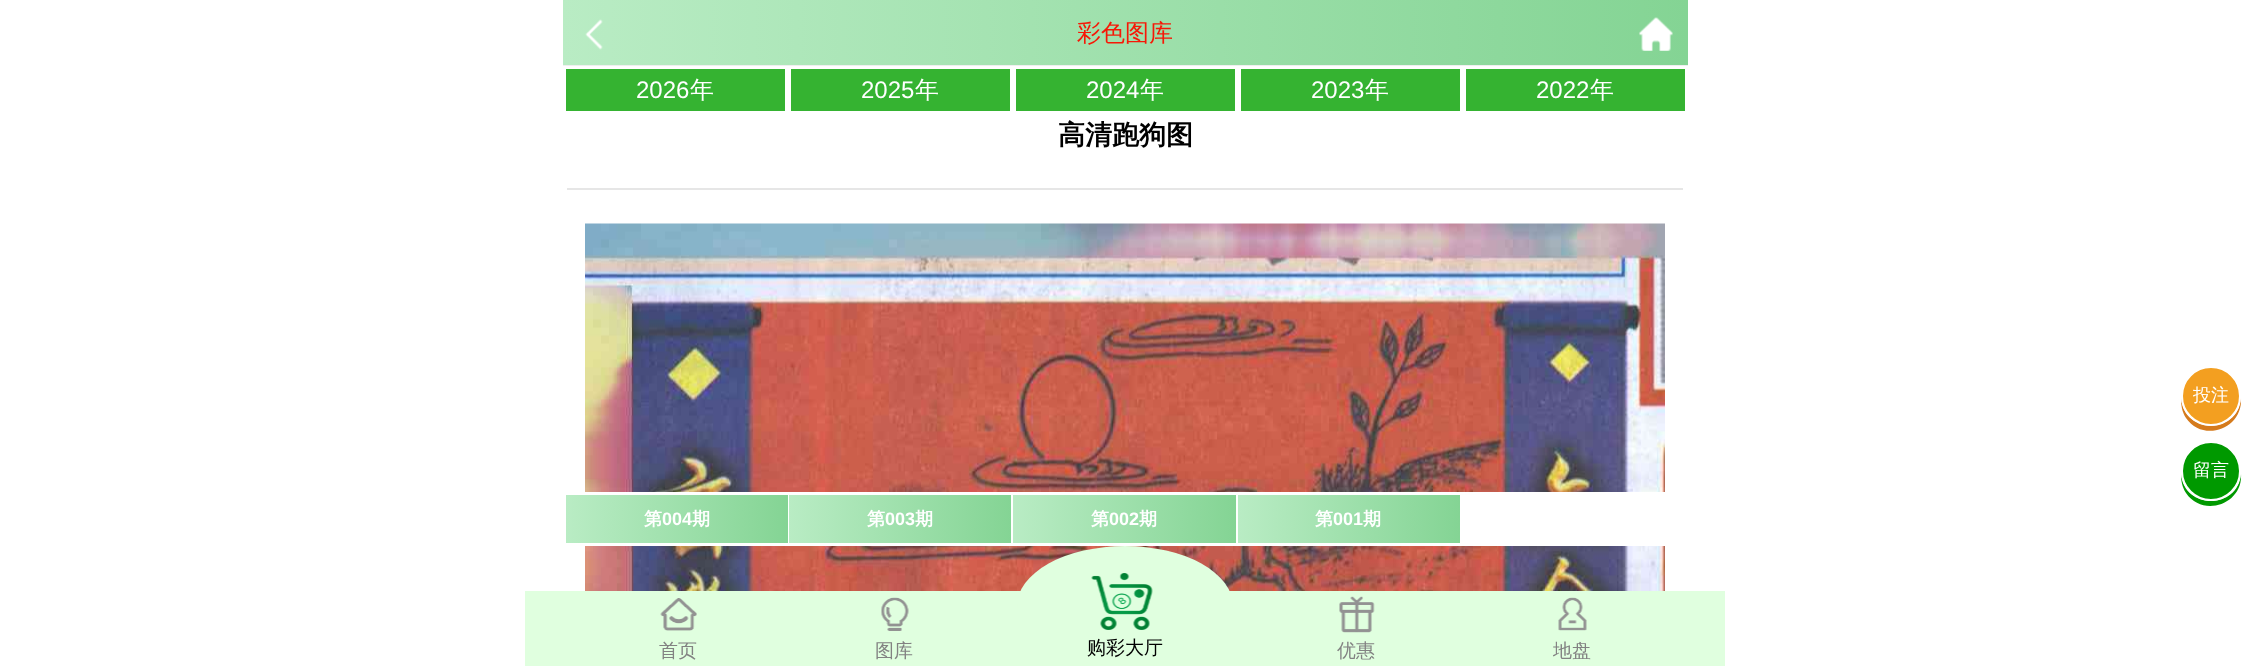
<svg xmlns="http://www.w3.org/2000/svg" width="2250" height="666">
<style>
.a{font:500 24px WenQuanYi Zen Hei;fill:#f71706}
.b{font:24px Liberation Sans;fill:#fff}
.c{font:500 24px WenQuanYi Zen Hei;fill:#fff}
.d{font:bold 27px WenQuanYi Zen Hei;fill:#000}
.e{font:bold 18px WenQuanYi Zen Hei;fill:#fff}
.f{font:bold 18px Liberation Sans;fill:#fff}
.g{font:500 18px WenQuanYi Zen Hei;fill:#fff}
.h{font:500 19px WenQuanYi Zen Hei;fill:#828282}
.i{font:500 19px WenQuanYi Zen Hei;fill:#000}
</style>
<defs>
<linearGradient id="g1" gradientUnits="userSpaceOnUse" x1="563" y1="32" x2="1688" y2="32"><stop offset="0" stop-color="#b9ecc4"/><stop offset="1" stop-color="#84d494"/></linearGradient>
<linearGradient id="g2" gradientUnits="userSpaceOnUse" x1="566" y1="519" x2="788" y2="519"><stop offset="0" stop-color="#b9ecc4"/><stop offset="1" stop-color="#84d494"/></linearGradient>
<linearGradient id="g3" gradientUnits="userSpaceOnUse" x1="789" y1="519" x2="1011" y2="519"><stop offset="0" stop-color="#b9ecc4"/><stop offset="1" stop-color="#84d494"/></linearGradient>
<linearGradient id="g4" gradientUnits="userSpaceOnUse" x1="1013" y1="519" x2="1236" y2="519"><stop offset="0" stop-color="#b9ecc4"/><stop offset="1" stop-color="#84d494"/></linearGradient>
<linearGradient id="g5" gradientUnits="userSpaceOnUse" x1="1238" y1="519" x2="1460" y2="519"><stop offset="0" stop-color="#b9ecc4"/><stop offset="1" stop-color="#84d494"/></linearGradient>
</defs>
<rect width="100%" height="100%" fill="#fff"/>
<path fill="url(#g1)" d="M563 0h1125v65H563z"/>
<path fill="#efefef" d="M563 65h1125v1H563z"/>
<image href="1.png" x="585" y="19" width="18" height="31"/>
<image href="2.png" x="1639" y="17" width="34" height="34"/>
<path fill="#35b331" d="M566 69h219v42H566z"/>
<path fill="#35b331" d="M791 69h219v42H791z"/>
<path fill="#35b331" d="M1016 69h219v42H1016z"/>
<path fill="#35b331" d="M1241 69h219v42H1241z"/>
<path fill="#35b331" d="M1466 69h219v42H1466z"/>
<path fill="#e6e6e6" d="M567 188h1116v2H567z"/>
<image href="3.png" x="585" y="223" width="1080" height="368"/>
<path fill="#fff" d="M585 492h1080v54H585z"/>
<path fill="url(#g2)" d="M566 495h222v48H566z"/>
<path fill="url(#g3)" d="M789 495h222v48H789z"/>
<path fill="url(#g4)" d="M1013 495h223v48H1013z"/>
<path fill="url(#g5)" d="M1238 495h222v48H1238z"/>
<path fill="#d57b1d" d="M2241 398c-3 37-57 37-60 0c0 7 1 14 5 20c17 25 57 11 55-20z"/>
<circle fill="#f39f20" stroke="#fff" stroke-width="2" cx="2211" cy="396" r="29"/>
<path fill="#090" d="M2241 474c-3 36-57 36-60 0c0 6 1 13 5 19c17 25 57 11 55-19z"/>
<circle fill="#090" stroke="#fff" stroke-width="2" cx="2211" cy="471" r="29"/>
<path fill="#e0ffdf" d="M525 591h1200v75H525z"/>
<image href="4.png" x="660" y="598" width="37" height="33"/>
<image href="5.png" x="881" y="597" width="28" height="34"/>
<ellipse fill="#e0ffdf" cx="1125" cy="606" rx="108" ry="60"/>
<image href="6.png" x="1091" y="573" width="62" height="57"/>
<image href="7.png" x="1339" y="596" width="36" height="37"/>
<image href="8.png" x="1558" y="597" width="29" height="34"/>
<text class="a" x="1077" y="41">彩色图库</text>
<text class="b" x="636" y="98">2026</text>
<text class="c" x="690" y="98">年</text>
<text class="b" x="861" y="98">2025</text>
<text class="c" x="915" y="98">年</text>
<text class="b" x="1086" y="98">2024</text>
<text class="c" x="1140" y="98">年</text>
<text class="b" x="1311" y="98">2023</text>
<text class="c" x="1365" y="98">年</text>
<text class="b" x="1536" y="98">2022</text>
<text class="c" x="1590" y="98">年</text>
<text class="d" x="1058" y="144">高清跑狗图</text>
<text class="e" x="644" y="525">第</text>
<text class="f" x="662" y="525">004</text>
<text class="e" x="692" y="525">期</text>
<text class="e" x="867" y="525">第</text>
<text class="f" x="885" y="525">003</text>
<text class="e" x="915" y="525">期</text>
<text class="e" x="1091" y="525">第</text>
<text class="f" x="1109" y="525">002</text>
<text class="e" x="1139" y="525">期</text>
<text class="e" x="1315" y="525">第</text>
<text class="f" x="1333" y="525">001</text>
<text class="e" x="1363" y="525">期</text>
<text class="g" x="2193" y="401">投注</text>
<text class="g" x="2193" y="476">留言</text>
<text class="h" x="659" y="657">首页</text>
<text class="h" x="875" y="657">图库</text>
<text class="i" x="1087" y="654">购彩大厅</text>
<text class="h" x="1337" y="657">优惠</text>
<text class="h" x="1553" y="657">地盘</text>
</svg>
